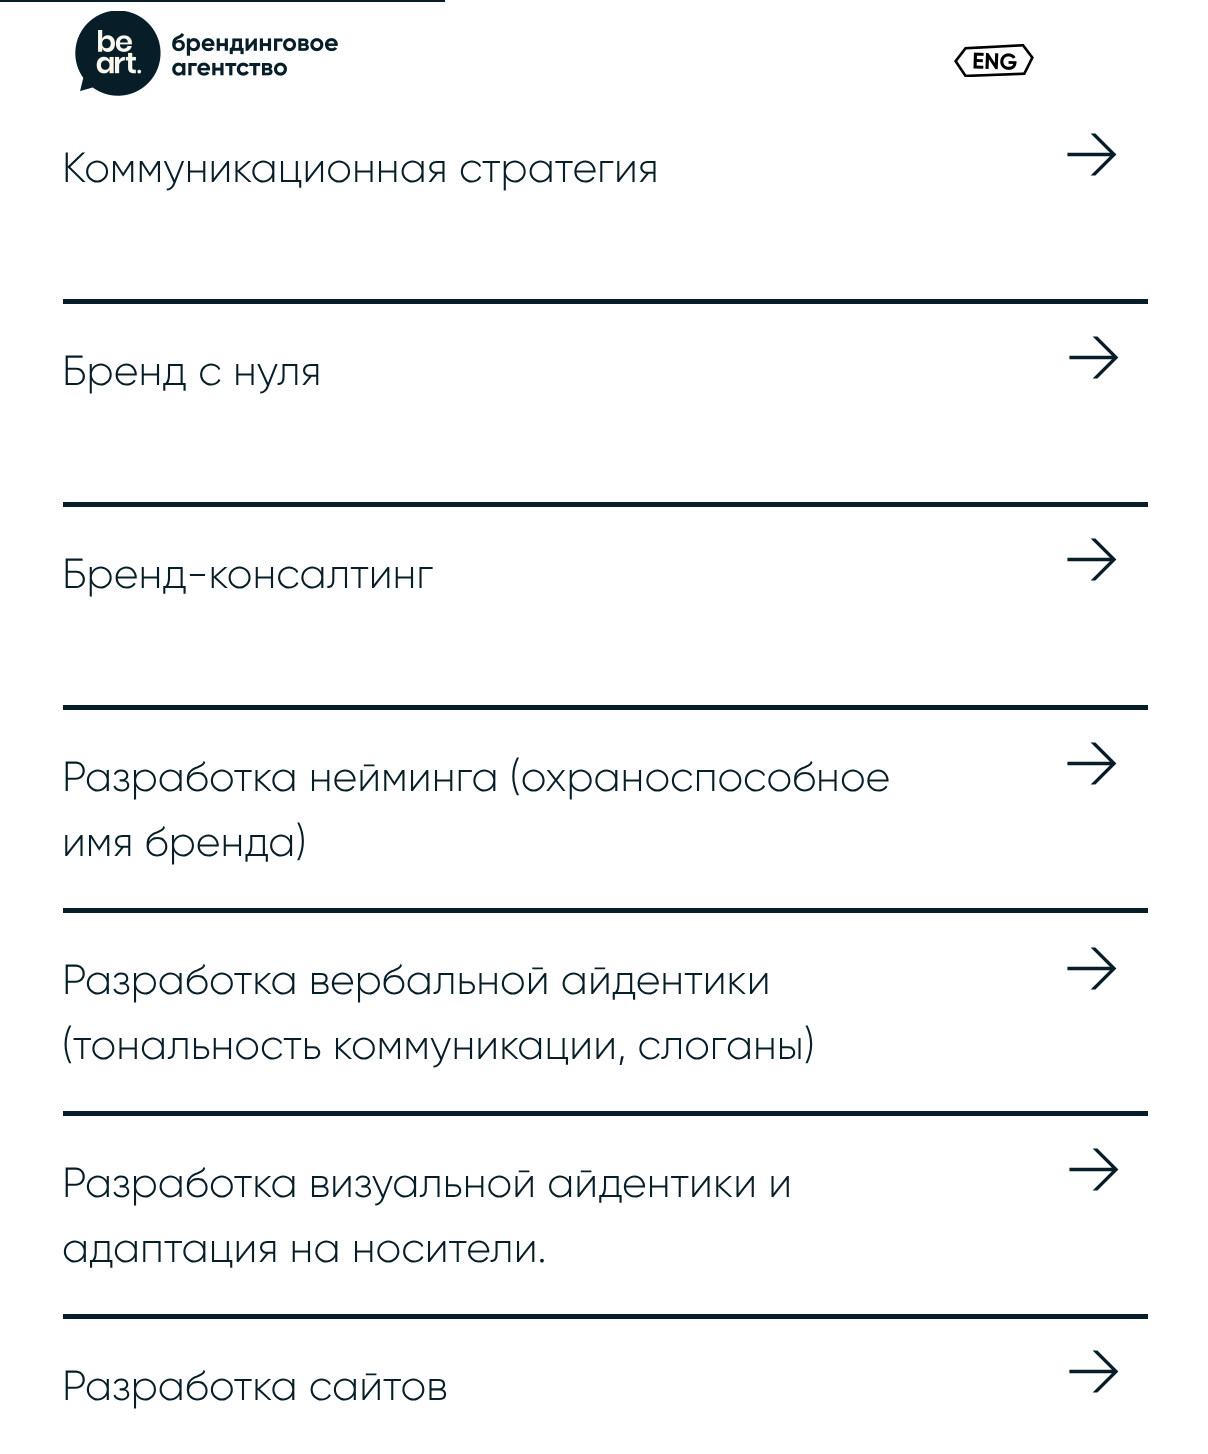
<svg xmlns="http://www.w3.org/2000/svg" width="1208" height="1454">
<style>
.a{font:300 42px Gilroy;fill:#071e28}
.b{font:300 70px Gilroy;fill:#071e28}
</style>
<rect width="100%" height="100%" fill="#fff"/>
<path fill="#071e28" d="M0 0h445v2H0z"/>
<image href="1.png" x="75" y="11" width="263" height="85"/>
<image href="2.png" x="954" y="44" width="80" height="33"/>
<path fill="#071e28" d="M63 299h1085v5H63z"/>
<path fill="#071e28" d="M63 502h1085v5H63z"/>
<path fill="#071e28" d="M63 705h1085v5H63z"/>
<path fill="#071e28" d="M63 908h1085v5H63z"/>
<path fill="#071e28" d="M63 1111h1085v5H63z"/>
<path fill="#071e28" d="M63 1314h1085v5H63z"/>
<text class="a" x="62" y="182">Коммуникационная стратегия</text>
<text class="b" x="1063" y="179">→</text>
<text class="a" x="62" y="385">Бренд с нуля</text>
<text class="b" x="1065" y="382">→</text>
<text class="a" x="62" y="588">Бренд-консалтинг</text>
<text class="b" x="1063" y="584">→</text>
<text class="a" x="62" y="791">Разработка нейминга (охраноспособное</text>
<text class="a" x="62" y="856">имя бренда)</text>
<text class="b" x="1063" y="788">→</text>
<text class="a" x="62" y="994">Разработка вербальной айдентики</text>
<text class="a" x="62" y="1059">(тональность коммуникации, слоганы)</text>
<text class="b" x="1063" y="993">→</text>
<text class="a" x="62" y="1197">Разработка визуальной айдентики и</text>
<text class="a" x="62" y="1262">адаптация на носители.</text>
<text class="b" x="1065" y="1194">→</text>
<text class="a" x="62" y="1400">Разработка сайтов</text>
<text class="b" x="1065" y="1396">→</text>
</svg>
